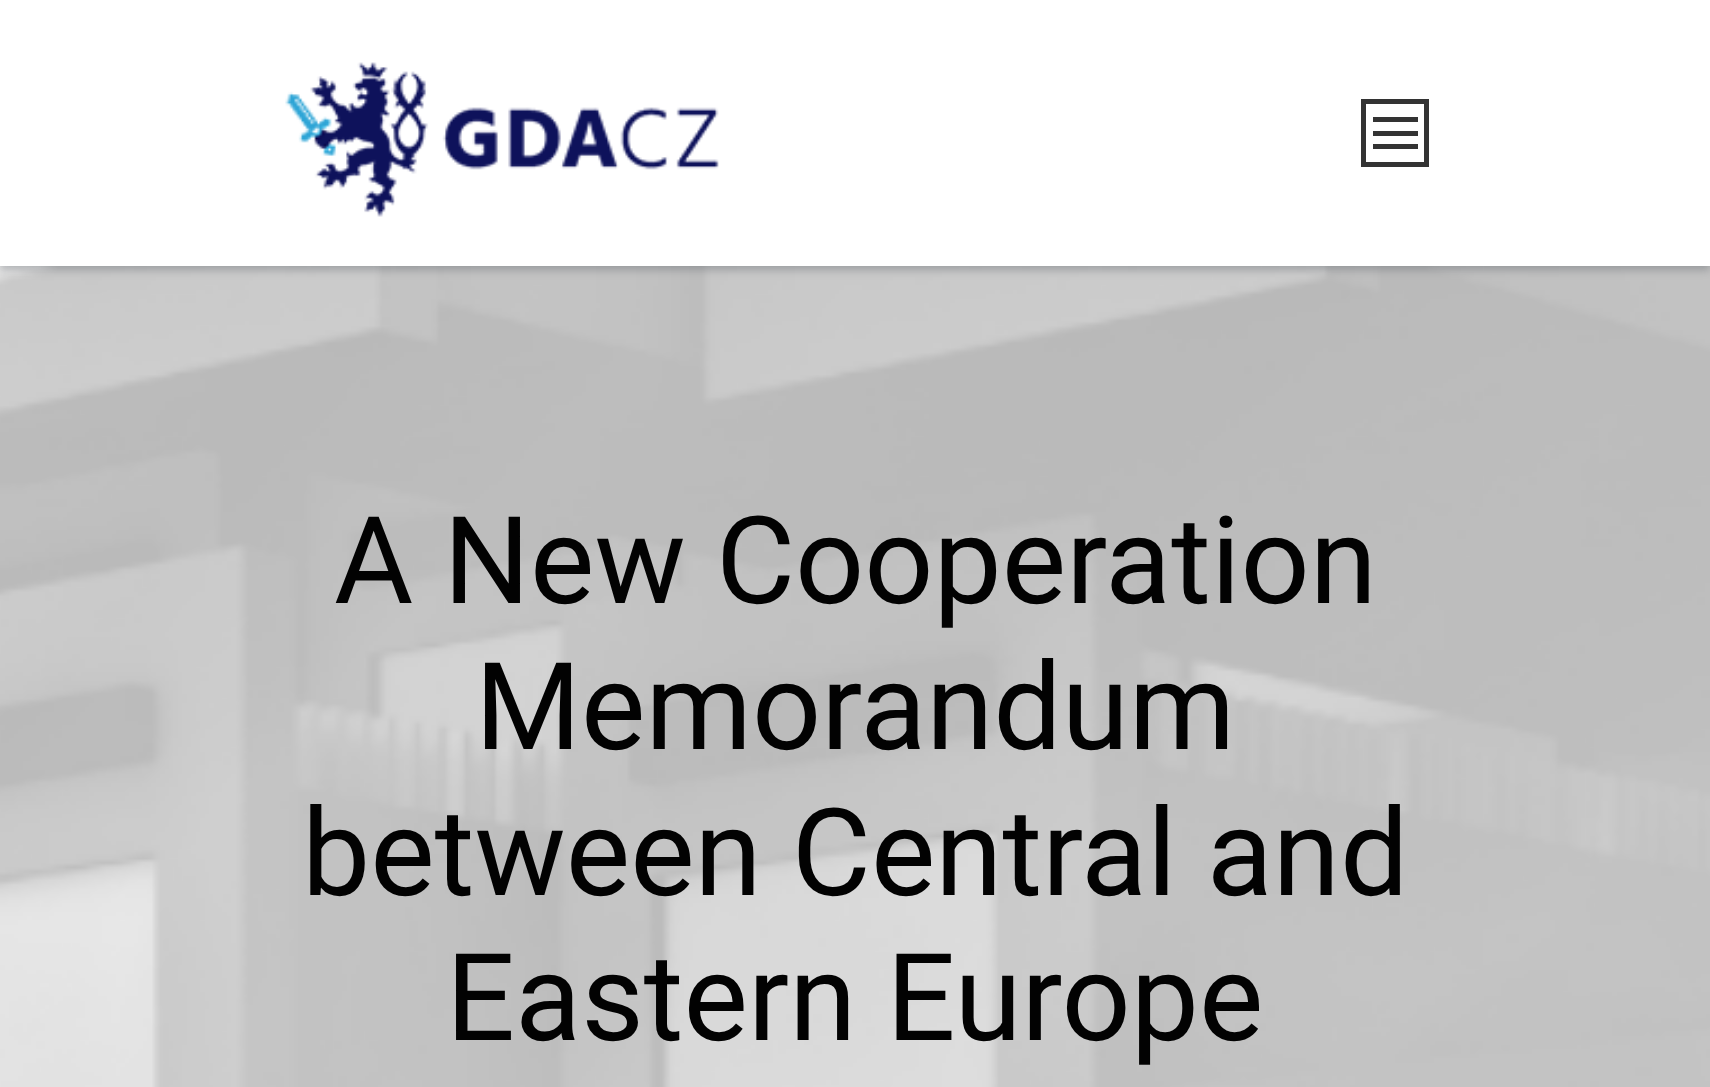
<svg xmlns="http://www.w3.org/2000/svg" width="1710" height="1087">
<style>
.a{font:121.5px Roboto;fill:#020202}
</style>
<rect width="100%" height="100%" fill="#fff"/>
<image href="2.png" x="0" y="266" width="1710" height="821"/>
<path fill="#393f484d" filter="blur(4.5px)" d="M0 5h1710v265H0z"/>
<path fill="#fff" d="M0 0h1710v266H0z"/>
<image href="1.png" x="285" y="62" width="434" height="155"/>
<path fill="none" stroke="#333" stroke-width="5" d="M1363.5 101.5h63v63H1363.5z"/>
<path fill="#333" d="M1373 131h45v5H1373z"/>
<path fill="#333" d="M1373 117h45v5H1373z"/>
<path fill="#333" d="M1373 144h45v5H1373z"/>
<text class="a" x="334" y="603">A New Cooperation</text>
<text class="a" x="475" y="749">Memorandum</text>
<text class="a" x="302" y="895">between Central and</text>
<text class="a" x="446" y="1040">Eastern Europe</text>
</svg>
